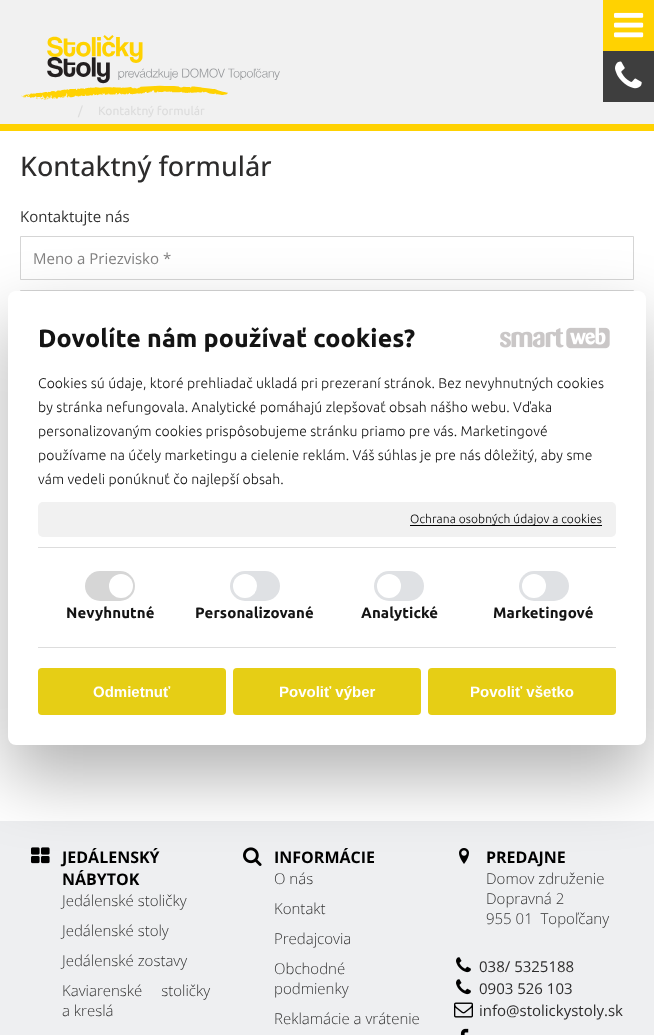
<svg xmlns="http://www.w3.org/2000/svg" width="654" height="1035">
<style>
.a{font:12px Ubuntu;fill:#dcdcdc}
.b{font:500 27px Open Sans;fill:#2d2c2c}
.c{font:15px Open Sans;fill:#333}
.d{font:15px Open Sans;fill:#818080}
.e{font:bold 25px Ubuntu;letter-spacing:0.1px;fill:#141414}
.f{font:300 14px Ubuntu;letter-spacing:0.1px;fill:#141414}
.g{font:300 12px Ubuntu;letter-spacing:0.1px;fill:#000}
.h{font:bold 15px Ubuntu;letter-spacing:0.1px;fill:#141414}
.i{font:bold 15px Liberation Sans;fill:#fff}
.j{font:bold 16px Open Sans;fill:#000}
.k{font:300 15px Open Sans;fill:#333}
.l{font:15px Open Sans;fill:#2d2c2c}
</style>
<rect width="100%" height="100%" fill="#fff"/>
<path fill="#f1f1f1" d="M0 0h654v124H0z"/>
<path fill="#ffd201" d="M603 0h51v51H603z"/>
<image href="1.png" x="614" y="12" width="30" height="26"/>
<path fill="#3e3e3e" d="M603 51h51v51H603z"/>
<image href="2.png" x="615" y="61" width="27" height="28"/>
<path fill="#ffd201" d="M0 124h654v7H0z"/>
<image href="3.png" x="21" y="35" width="259" height="65"/>
<path fill="none" stroke="#d5d5d5" d="M20.5 236.5h613v43H20.5z"/>
<path fill="none" stroke="#d5d5d5" d="M20.5 290.5h613v43H20.5z"/>
<path fill="#eeeff1" d="M0 821h654v214H0z"/>
<image href="6.png" x="31" y="847" width="19" height="17"/>
<image href="7.png" x="243" y="847" width="19" height="19"/>
<image href="8.png" x="459" y="848" width="10" height="16"/>
<rect fill="#0000004d" filter="blur(34px)" x="8" y="323" width="638" height="454" rx="8"/>
<rect fill="#fff" x="8" y="291" width="638" height="454" rx="8"/>
<image href="4.png" x="500" y="328" width="64" height="20"/>
<image href="5.png" x="566" y="327" width="44" height="22"/>
<rect fill="#f1f1f1" x="38" y="502" width="578" height="35" rx="5"/>
<path fill="#000" d="M410 525h192v1H410z"/>
<path fill="#ddd" d="M38 547h578v1H38z"/>
<path fill="#ddd" d="M38 647h578v1H38z"/>
<rect fill="#d6d6d6" x="85" y="571" width="50" height="30" rx="15"/>
<circle fill="#fff" cx="121" cy="586" r="12"/>
<rect fill="#dfe1e4" x="230" y="571" width="50" height="30" rx="15"/>
<circle fill="#fff" cx="245" cy="586" r="12"/>
<rect fill="#dfe1e4" x="374" y="571" width="50" height="30" rx="15"/>
<circle fill="#fff" cx="389" cy="586" r="12"/>
<rect fill="#dfe1e4" x="519" y="571" width="50" height="30" rx="15"/>
<circle fill="#fff" cx="534" cy="586" r="12"/>
<rect fill="#e6ce15" x="38" y="668" width="188" height="47" rx="4"/>
<rect fill="#e6ce15" x="233" y="668" width="188" height="47" rx="4"/>
<rect fill="#e6ce15" x="428" y="668" width="188" height="47" rx="4"/>
<image href="9.png" x="456" y="957" width="15" height="16"/>
<image href="9.png" x="456" y="979" width="15" height="16"/>
<image href="10.png" x="454" y="1002" width="19" height="16"/>
<image href="11.png" x="460" y="1028" width="9" height="7"/>
<text class="a" x="78" y="115">/</text>
<text class="a" x="98" y="115">Kontaktný formulár</text>
<text class="b" x="20" y="176">Kontaktný formulár</text>
<text class="c" x="20" y="222">Kontaktujte nás</text>
<text class="d" x="33" y="264">Meno a Priezvisko *</text>
<text class="e" x="38" y="347">Dovolíte nám používať cookies?</text>
<text class="f" x="38" y="388">Cookies sú údaje, ktoré prehliadač ukladá pri prezeraní stránok. Bez nevyhnutných cookies</text>
<text class="f" x="38" y="412">by stránka nefungovala. Analytické pomáhajú zlepšovať obsah nášho webu. Vďaka</text>
<text class="f" x="38" y="436">personalizovaným cookies prispôsobujeme stránku priamo pre vás. Marketingové</text>
<text class="f" x="38" y="460">používame na účely marketingu a cielenie reklám. Váš súhlas je pre nás dôležitý, aby sme</text>
<text class="f" x="38" y="484">vám vedeli ponúknuť čo najlepší obsah.</text>
<text class="g" x="410" y="523">Ochrana osobných údajov a cookies</text>
<text class="h" x="66" y="618">Nevyhnutné</text>
<text class="h" x="195" y="618">Personalizované</text>
<text class="h" x="361" y="618">Analytické</text>
<text class="h" x="493" y="618">Marketingové</text>
<text class="i" x="93" y="697">Odmietnuť</text>
<text class="i" x="279" y="697">Povoliť výber</text>
<text class="i" x="470" y="697">Povoliť všetko</text>
<text class="j" x="62" y="863">JEDÁLENSKÝ</text>
<text class="j" x="62" y="885">NÁBYTOK</text>
<text class="k" x="62" y="906">Jedálenské stoličky</text>
<text class="k" x="62" y="936">Jedálenské stoly</text>
<text class="k" x="62" y="966">Jedálenské zostavy</text>
<text class="k" x="62" y="996" word-spacing="15">Kaviarenské stoličky</text>
<text class="k" x="62" y="1016">a kreslá</text>
<text class="j" x="274" y="863">INFORMÁCIE</text>
<text class="k" x="274" y="884">O nás</text>
<text class="k" x="274" y="914">Kontakt</text>
<text class="k" x="274" y="944">Predajcovia</text>
<text class="k" x="274" y="974">Obchodné</text>
<text class="k" x="274" y="994">podmienky</text>
<text class="k" x="274" y="1024">Reklamácie a vrátenie</text>
<text class="j" x="486" y="863">PREDAJNE</text>
<text class="k" x="486" y="884">Domov združenie</text>
<text class="k" x="486" y="904">Dopravná 2</text>
<text class="k" xml:space="preserve" x="486" y="924">955 01  Topoľčany</text>
<text class="l" x="479" y="972">038/ 5325188</text>
<text class="l" x="479" y="994">0903 526 103</text>
<text class="l" x="479" y="1016">info@stolickystoly.sk</text>
</svg>
